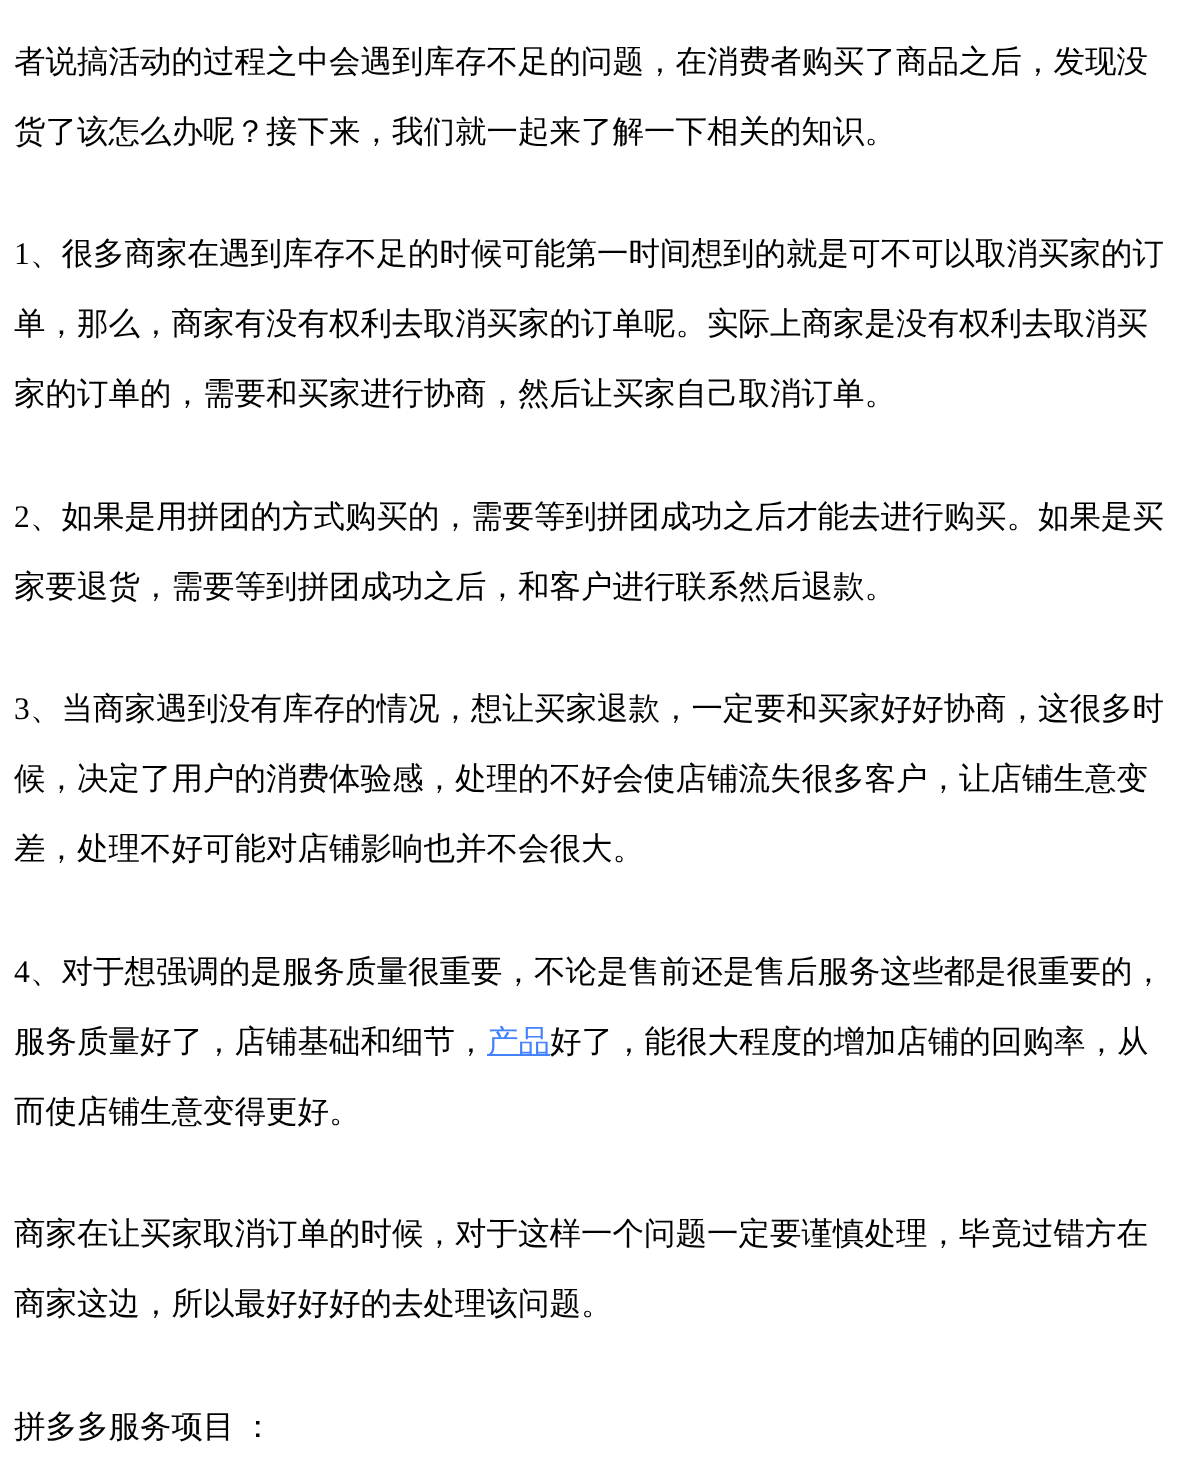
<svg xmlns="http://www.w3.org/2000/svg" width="1185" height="1474">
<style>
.a{font:500 31.5px WenQuanYi Zen Hei;fill:#000}
.b{font:31.5px Liberation Serif;fill:#000}
.c{font:500 31.5px WenQuanYi Zen Hei;fill:#4382ff}
</style>
<rect width="100%" height="100%" fill="#fff"/>
<path fill="#4382ff" d="M487 1054h63v2H487z"/>
<text class="a" x="14" y="72">者说搞活动的过程之中会遇到库存不足的问题，在消费者购买了商品之后，发现没</text>
<text class="a" x="14" y="142">货了该怎么办呢？接下来，我们就一起来了解一下相关的知识。</text>
<text class="b" x="14" y="264">1</text>
<text class="a" x="30" y="264">、很多商家在遇到库存不足的时候可能第一时间想到的就是可不可以取消买家的订</text>
<text class="a" x="14" y="334">单，那么，商家有没有权利去取消买家的订单呢。实际上商家是没有权利去取消买</text>
<text class="a" x="14" y="404">家的订单的，需要和买家进行协商，然后让买家自己取消订单。</text>
<text class="b" x="14" y="527">2</text>
<text class="a" x="30" y="527">、如果是用拼团的方式购买的，需要等到拼团成功之后才能去进行购买。如果是买</text>
<text class="a" x="14" y="597">家要退货，需要等到拼团成功之后，和客户进行联系然后退款。</text>
<text class="b" x="14" y="719">3</text>
<text class="a" x="30" y="719">、当商家遇到没有库存的情况，想让买家退款，一定要和买家好好协商，这很多时</text>
<text class="a" x="14" y="789">候，决定了用户的消费体验感，处理的不好会使店铺流失很多客户，让店铺生意变</text>
<text class="a" x="14" y="859">差，处理不好可能对店铺影响也并不会很大。</text>
<text class="b" x="14" y="982">4</text>
<text class="a" x="30" y="982">、对于想强调的是服务质量很重要，不论是售前还是售后服务这些都是很重要的，</text>
<text class="a" x="14" y="1052">服务质量好了，店铺基础和细节，</text>
<text class="c" x="487" y="1052">产品</text>
<text class="a" x="550" y="1052">好了，能很大程度的增加店铺的回购率，从</text>
<text class="a" x="14" y="1122">而使店铺生意变得更好。</text>
<text class="a" x="14" y="1244">商家在让买家取消订单的时候，对于这样一个问题一定要谨慎处理，毕竟过错方在</text>
<text class="a" x="14" y="1314">商家这边，所以最好好好的去处理该问题。</text>
<text class="a" x="14" y="1437" word-spacing="-2">拼多多服务项目 ：</text>
</svg>
